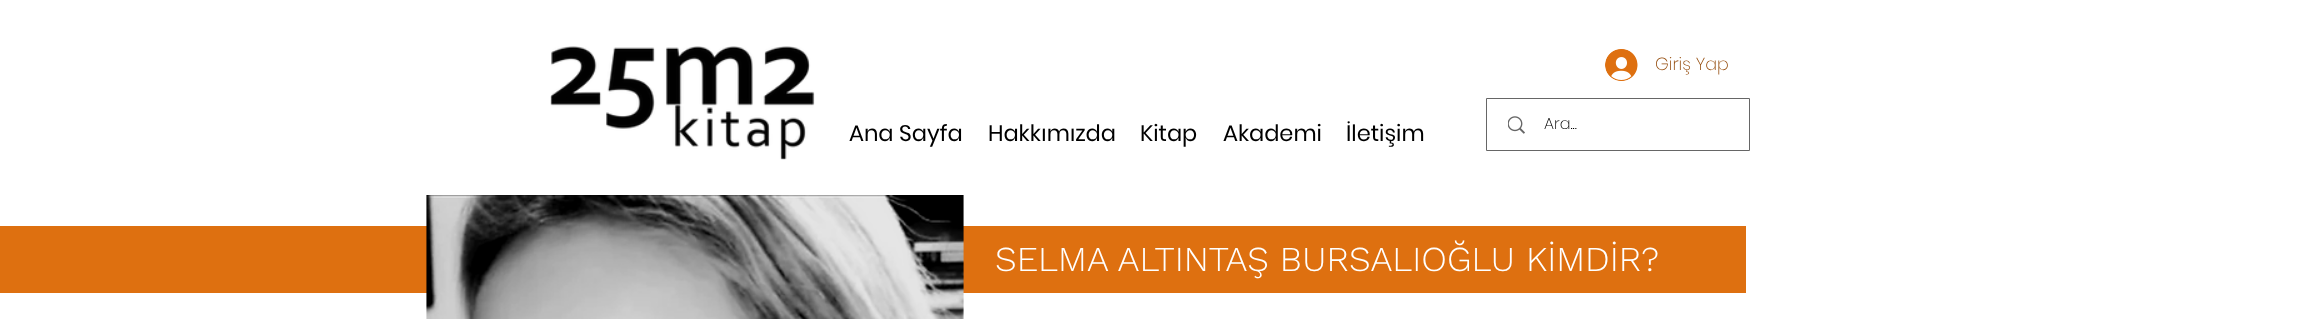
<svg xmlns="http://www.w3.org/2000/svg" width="2297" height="319">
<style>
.a{font:200 17.5px Poppins;fill:#944b0b}
.b{font:22.5px Poppins;fill:#000}
.c{font:200 16px Poppins;fill:#000}
.d{font:300 35px Work Sans;fill:#fff}
</style>
<rect width="100%" height="100%" fill="#fff"/>
<image href="1.png" x="550" y="46" width="265" height="114"/>
<image href="2.png" x="1605" y="49" width="33" height="32"/>
<path fill="none" stroke="#666" d="M1486.5 98.5h263v52H1486.5z"/>
<image href="3.png" x="1508" y="116" width="17" height="18"/>
<path fill="#de7010" d="M0 226h1746v67H0z"/>
<image href="4.png" x="426" y="195" width="538" height="124"/>
<text class="a" x="1655" y="70">Giriş Yap</text>
<text class="b" x="849" y="141">Ana Sayfa</text>
<text class="b" x="988" y="141">Hakkımızda</text>
<text class="b" x="1140" y="141">Kitap</text>
<text class="b" x="1223" y="141">Akademi</text>
<text class="b" x="1346" y="141">İletişim</text>
<text class="c" x="1544" y="129">Ara...</text>
<text class="d" x="995" y="271">SELMA ALTINTAŞ BURSALIOĞLU KİMDİR?</text>
</svg>
